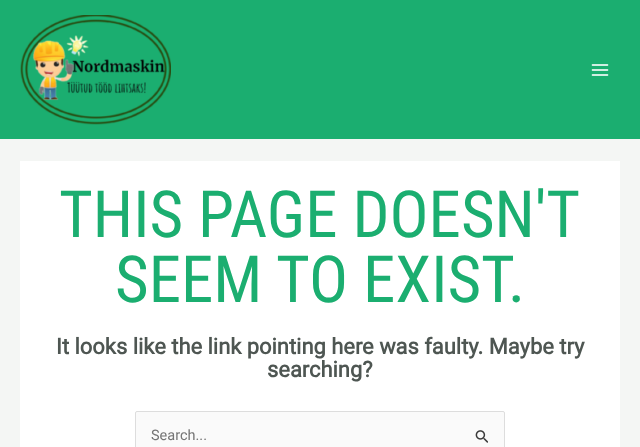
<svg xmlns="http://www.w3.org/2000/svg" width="640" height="447">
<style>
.a{font:65px Roboto Condensed;fill:#1bae70}
.b{font:bold 21.9px Roboto;fill:#4e5652}
.c{font:14.5px Roboto;fill:#757575}
</style>
<rect width="100%" height="100%" fill="#f4f6f4"/>
<path fill="#1bae70" d="M0 0h640v139H0z"/>
<image href="1.png" x="20" y="15" width="151" height="110"/>
<image href="2.png" x="591" y="64" width="18" height="12"/>
<path fill="#fff" d="M20 161h600v286H20z"/>
<rect fill="#fafafa" stroke="#ddd" x="135.5" y="411.5" width="369" height="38" rx="1.5"/>
<image href="3.png" x="475" y="430" width="13" height="13"/>
<text class="a" x="59" y="237">THIS PAGE DOESN'T</text>
<text class="a" x="115" y="302">SEEM TO EXIST.</text>
<text class="b" x="56" y="354">It looks like the link pointing here was faulty. Maybe try</text>
<text class="b" x="267" y="377">searching?</text>
<text class="c" x="151" y="440">Search...</text>
</svg>
